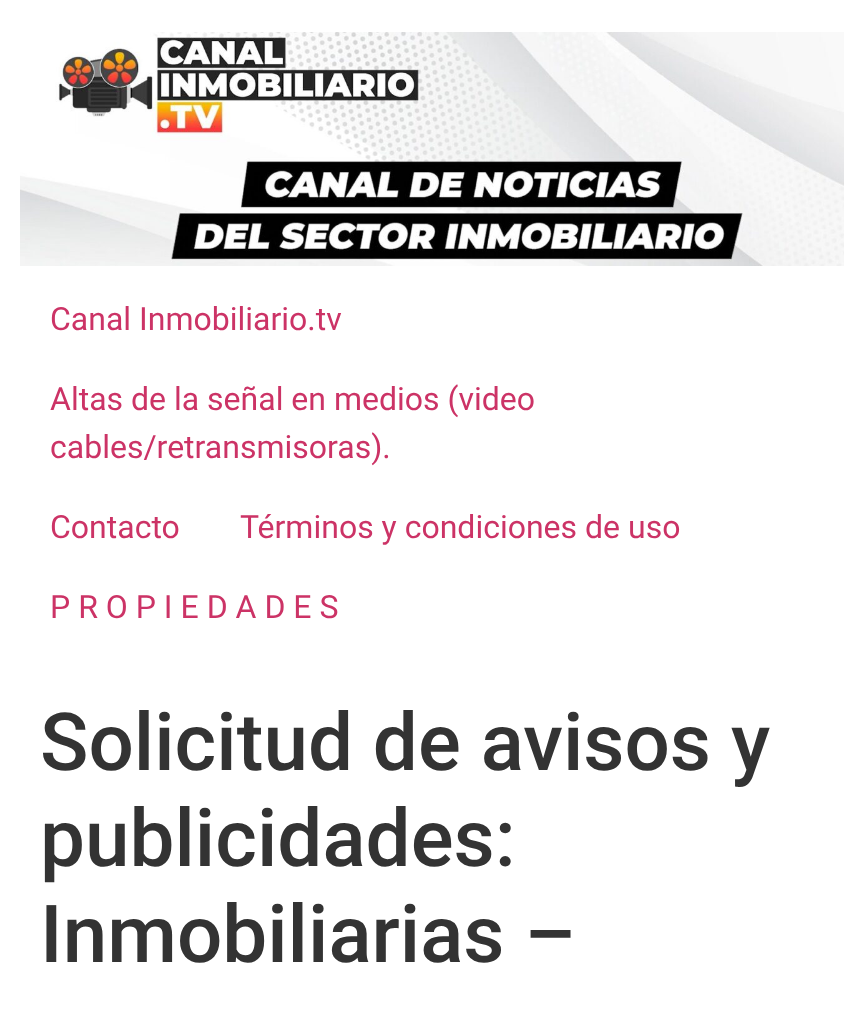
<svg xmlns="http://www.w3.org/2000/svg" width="864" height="1024">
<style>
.a{font:32px Roboto;fill:#c36}
.b{font:500 80px Roboto;fill:#333}
</style>
<rect width="100%" height="100%" fill="#fff"/>
<image href="1.png" x="20" y="32" width="824" height="234"/>
<text class="a" x="50" y="330">Canal Inmobiliario.tv</text>
<text class="a" x="50" y="410">Altas de la señal en medios (video</text>
<text class="a" x="50" y="458">cables/retransmisoras).</text>
<text class="a" x="50" y="538">Contacto</text>
<text class="a" x="240" y="538">Términos y condiciones de uso</text>
<text class="a" x="50" y="618">P R O P I E D A D E S</text>
<text class="b" x="40" y="770">Solicitud de avisos y</text>
<text class="b" x="40" y="866">publicidades:</text>
<text class="b" x="40" y="962">Inmobiliarias –</text>
</svg>
